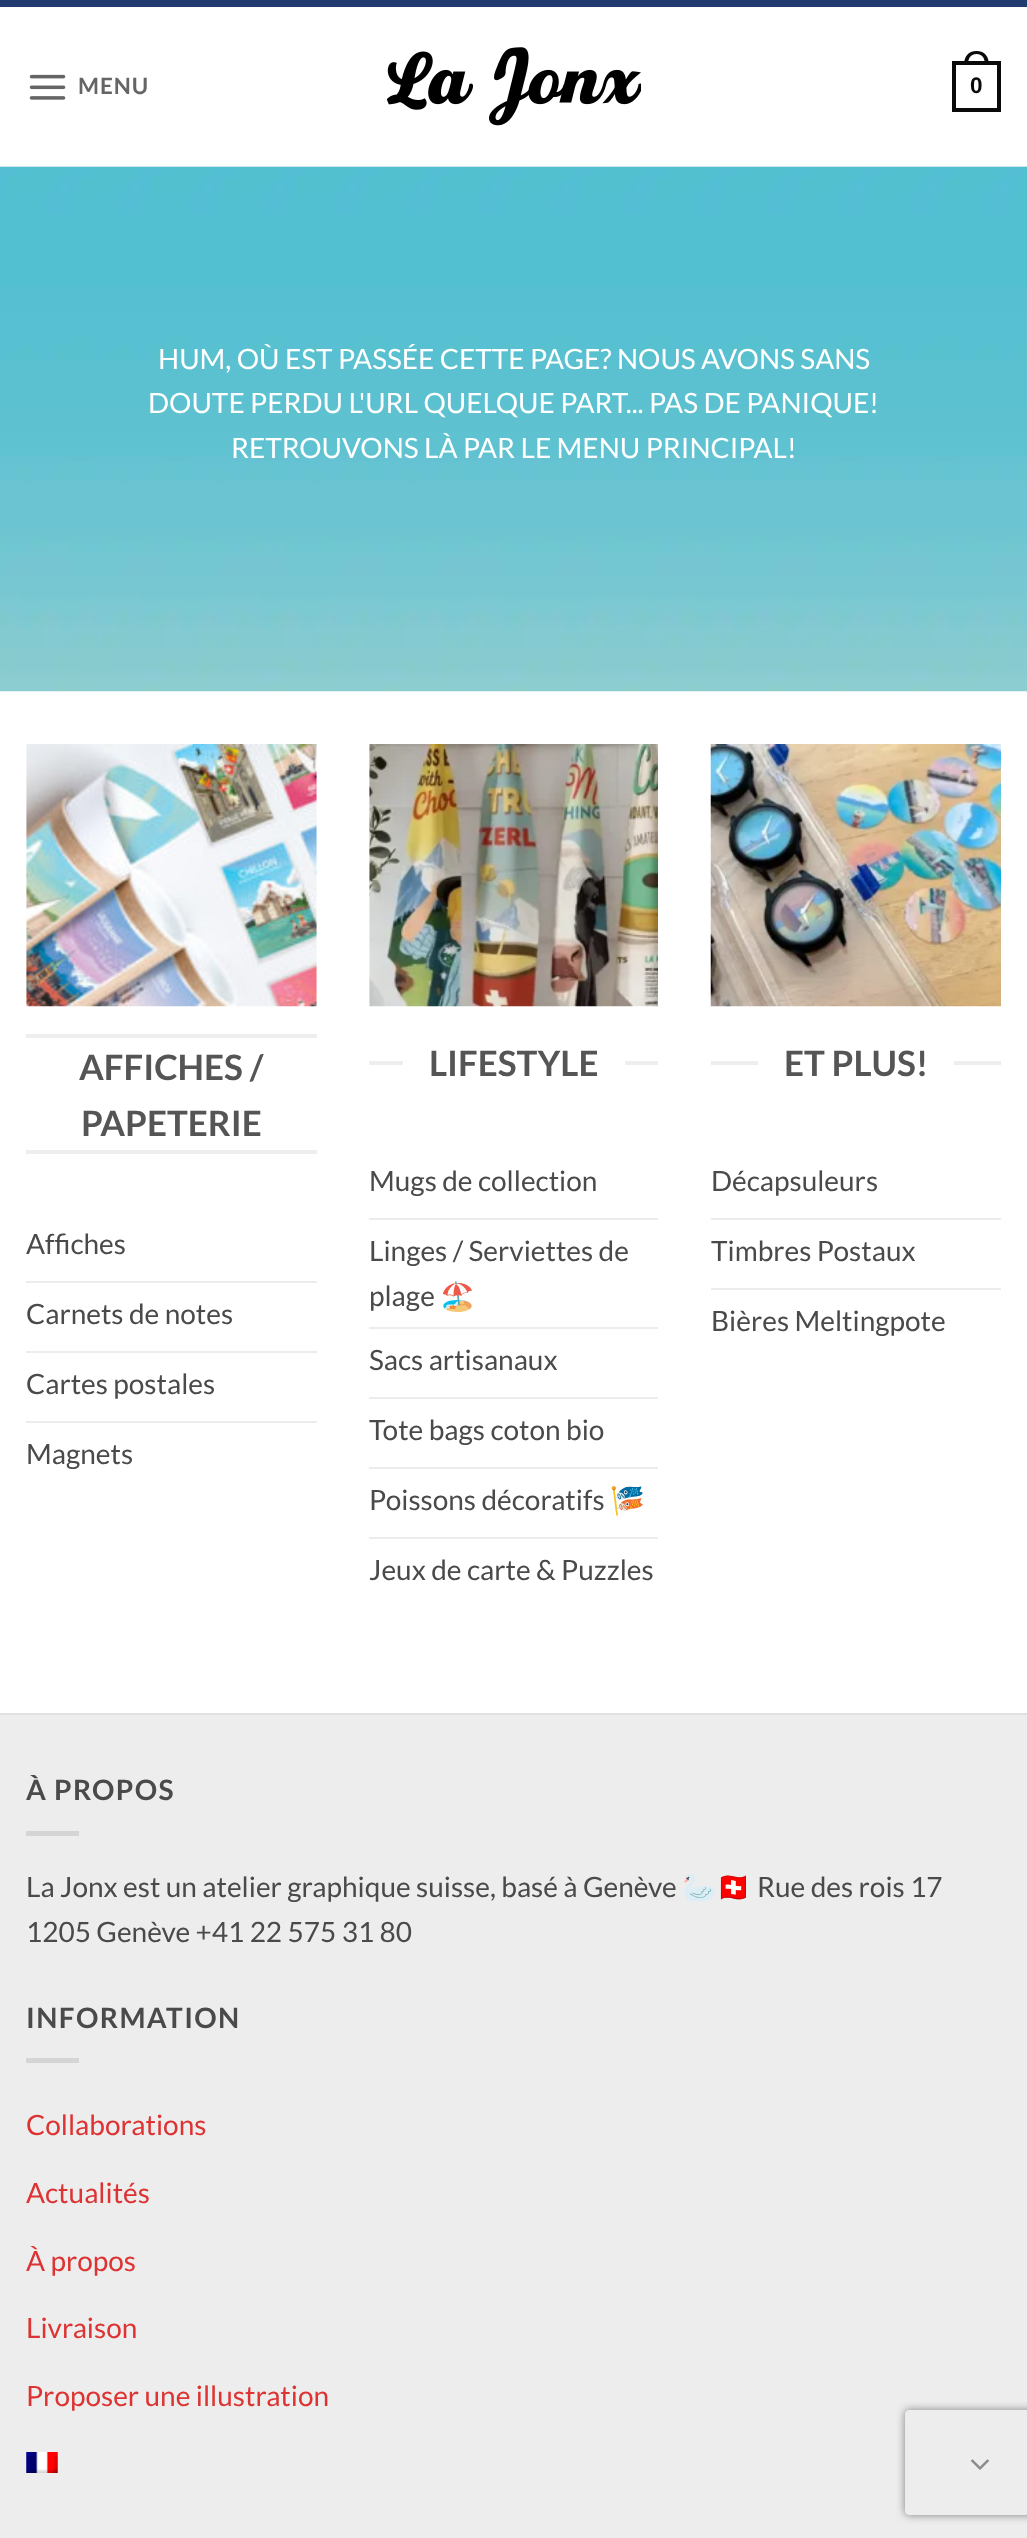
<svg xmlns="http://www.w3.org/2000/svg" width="1027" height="2538">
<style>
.a{font:bold 22.5px Lato;letter-spacing:1px;fill:#656565}
.b{font:bold 22.5px Liberation Sans;fill:#0a0a0a}
.c{font:28px Lato;fill:#fff}
.d{font:bold 35px Lato;fill:#555}
.e{font:28px Lato;fill:#4a4a4a}
.f{font:28px Noto Color Emoji;fill:#4a4a4a}
.g{font:bold 28px Lato;letter-spacing:1.4px;fill:#4a4a4a}
.h{font:28px Lato;fill:#d33}
</style>
<defs>
<clipPath id="clip1"><path d="M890 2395h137v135h-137zm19 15h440c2 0 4 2 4 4v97c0 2-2 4-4 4h-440c-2 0-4-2-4-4v-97c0-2 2-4 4-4z" clip-rule="evenodd"/></clipPath>
</defs>
<rect width="100%" height="100%" fill="#fff"/>
<path fill="#213a70" d="M0 0h1027v7H0z"/>
<image href="1.png" x="29" y="74" width="37" height="26"/>
<image href="2.png" x="387" y="47" width="254" height="79"/>
<path fill="none" stroke="#0a0a0a" stroke-width="4" d="M954 63h45v47H954z"/>
<path fill="#0a0a0a" fill-rule="evenodd" d="M976.5 51c8.5 0 12.5 6 12.5 14h-25c0-8 4-14 12.5-14zm0 3c6.5 0 8.5 5 8.5 11h-17c0-6 2-11 8.5-11z"/>
<path fill="#f5f5f5" d="M0 166h1027v1H0z"/>
<image href="3.png" x="0" y="166" width="1027" height="526"/>
<image href="4.png" x="26" y="744" width="291" height="263"/>
<path fill="#eee" d="M26 1034h291v4H26z"/>
<path fill="#eee" d="M26 1150h291v4H26z"/>
<path fill="#ececec" d="M26 1281h291v2H26z"/>
<path fill="#ececec" d="M26 1351h291v2H26z"/>
<path fill="#ececec" d="M26 1421h291v2H26z"/>
<image href="5.png" x="369" y="744" width="289" height="263"/>
<path fill="#eee" d="M369 1061h34v4H369z"/>
<path fill="#eee" d="M625 1061h33v4H625z"/>
<path fill="#ececec" d="M369 1218h289v2H369z"/>
<path fill="#ececec" d="M369 1327h289v2H369z"/>
<path fill="#ececec" d="M369 1397h289v2H369z"/>
<path fill="#ececec" d="M369 1467h289v2H369z"/>
<path fill="#ececec" d="M369 1537h289v2H369z"/>
<image href="6.png" x="710" y="744" width="291" height="263"/>
<path fill="#eee" d="M711 1061h47v4H711z"/>
<path fill="#eee" d="M954 1061h47v4H954z"/>
<path fill="#ececec" d="M711 1218h290v2H711z"/>
<path fill="#ececec" d="M711 1288h290v2H711z"/>
<path fill="#ededed" d="M0 1715h1027v823H0z"/>
<path fill="#e1e1e1" d="M0 1713h1027v2H0z"/>
<path fill="#d5d5d5" d="M26 1831h53v5H26z"/>
<path fill="#d5d5d5" d="M26 2058h53v5H26z"/>
<image href="7.png" x="26" y="2452" width="32" height="21"/>
<image href="8.png" x="971" y="2459" width="18" height="11"/>
<g clip-path="url(#clip1)">
<rect fill="#808080" filter="blur(4.5px)" x="905" y="2410" width="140" height="105" rx="4"/>
</g>
<text class="a" x="78" y="94">MENU</text>
<text class="b" x="970" y="93">0</text>
<text class="c" x="158" y="369">HUM, OÙ EST PASSÉE CETTE PAGE? NOUS AVONS SANS</text>
<text class="c" x="148" y="413">DOUTE PERDU L'URL QUELQUE PART... PAS DE PANIQUE!</text>
<text class="c" x="231" y="458">RETROUVONS LÀ PAR LE MENU PRINCIPAL!</text>
<text class="d" x="79" y="1080">AFFICHES /</text>
<text class="d" x="81" y="1136">PAPETERIE</text>
<text class="e" x="26" y="1254">Affiches</text>
<text class="e" x="26" y="1324">Carnets de notes</text>
<text class="e" x="26" y="1394">Cartes postales</text>
<text class="e" x="26" y="1464">Magnets</text>
<text class="d" x="429" y="1076">LIFESTYLE</text>
<text class="e" x="369" y="1191">Mugs de collection</text>
<text class="e" x="369" y="1261">Linges / Serviettes de</text>
<text class="e" x="369" y="1306">plage</text>
<text class="f" x="440" y="1306">🏖️</text>
<text class="e" x="369" y="1370">Sacs artisanaux</text>
<text class="e" x="369" y="1440">Tote bags coton bio</text>
<text class="e" x="369" y="1510">Poissons décoratifs</text>
<text class="f" x="610" y="1510">🎏</text>
<text class="e" x="369" y="1580">Jeux de carte &amp; Puzzles</text>
<text class="d" x="784" y="1076">ET PLUS!</text>
<text class="e" x="711" y="1191">Décapsuleurs</text>
<text class="e" x="711" y="1261">Timbres Postaux</text>
<text class="e" x="711" y="1331">Bières Meltingpote</text>
<text class="g" x="26" y="1800">À PROPOS</text>
<text class="e" x="26" y="1897">La Jonx est un atelier graphique suisse, basé à Genève</text>
<text class="f" x="682" y="1897">🦢🇨🇭</text>
<text class="e" x="757" y="1897">Rue des rois 17</text>
<text class="e" x="26" y="1942">1205 Genève +41 22 575 31 80</text>
<text class="g" x="26" y="2028">INFORMATION</text>
<text class="h" x="26" y="2135">Collaborations</text>
<text class="h" x="26" y="2203">Actualités</text>
<text class="h" x="26" y="2271">À propos</text>
<text class="h" x="26" y="2338">Livraison</text>
<text class="h" x="26" y="2406">Proposer une illustration</text>
</svg>
